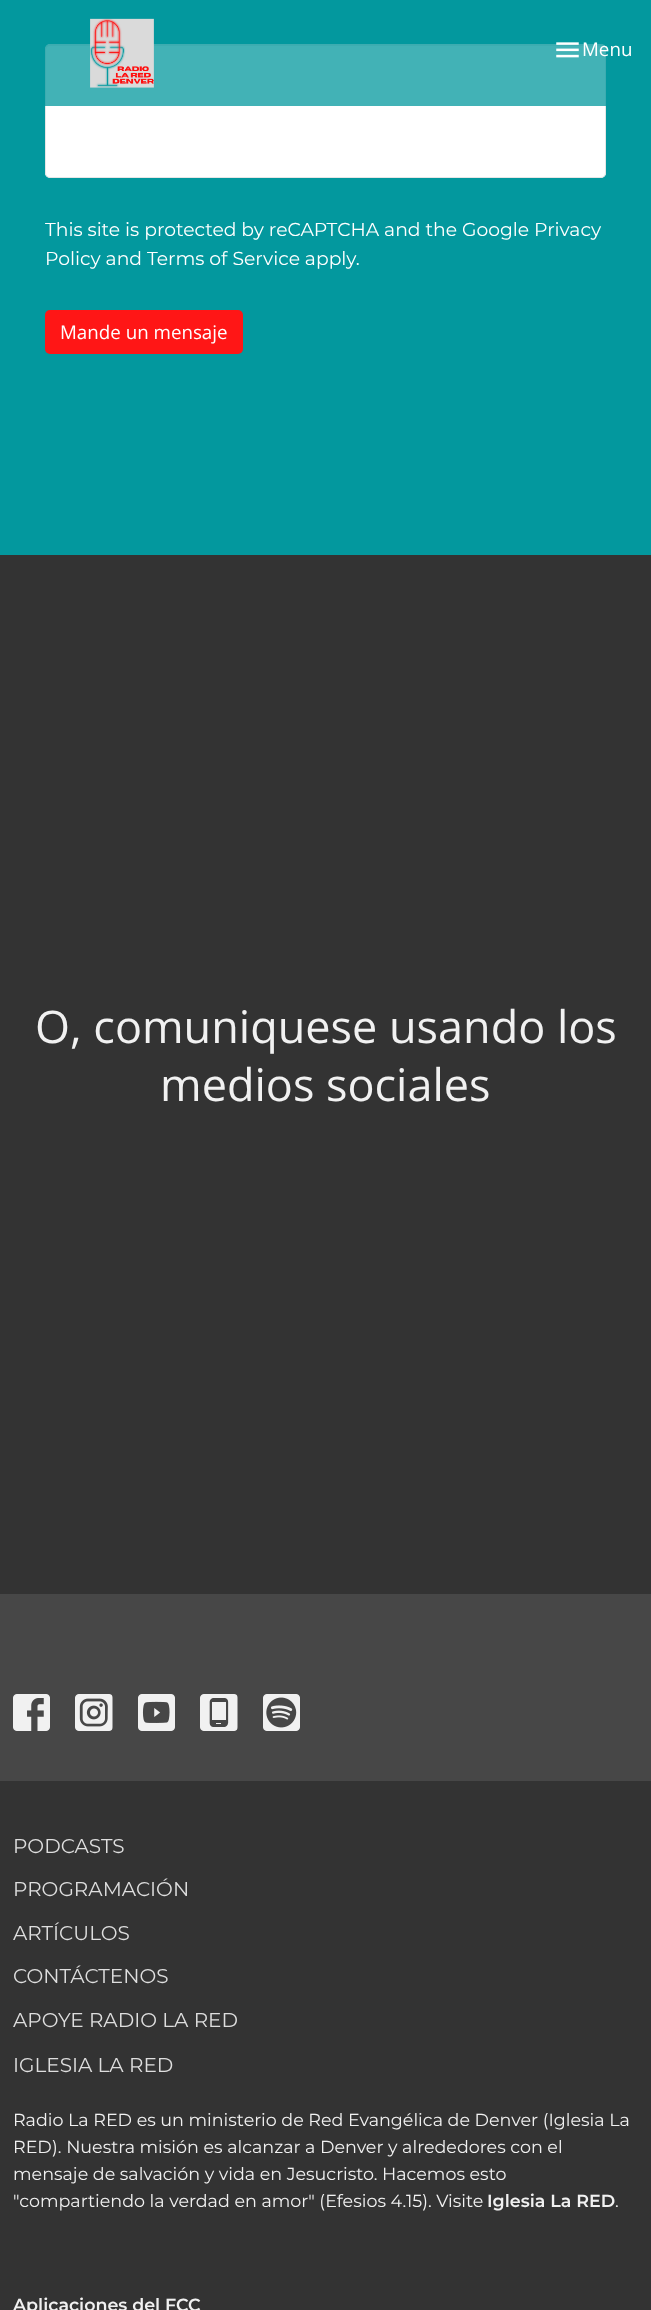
<svg xmlns="http://www.w3.org/2000/svg" width="651" height="2310">
<style>
.a{font:18.75px Open Sans;fill:#fff}
.b{font:18.75px Montserrat;fill:#fff}
.c{font:45px Open Sans;fill:#f1f1f1}
.d{font:20px Montserrat;fill:#dedede}
.e{font:17.5px Montserrat;fill:#f1f1f1}
.f{font:600 17.5px Montserrat;fill:#f1f1f1}
</style>
<rect width="100%" height="100%" fill="#474747"/>
<path fill="#03989e" d="M0 0h651v555H0z"/>
<rect fill="#fff" x="45" y="44" width="561" height="134" rx="5"/>
<path fill="#ececec" d="M50 46h551c2 0 4 2 4 4c0-3-1-5-4-5h-551c-3 0-4 2-4 5c0-2 2-4 4-4z"/>
<rect fill="none" stroke="#e6e6e6" x="45.5" y="44.5" width="560" height="133" rx="4.5"/>
<path fill="#03989ebf" d="M45 44h561v62H45z"/>
<image href="1.png" x="90" y="18" width="64" height="70"/>
<image href="2.png" x="556" y="42" width="23" height="16"/>
<rect fill="#ff1616" x="45" y="310" width="198" height="44" rx="5"/>
<path fill="#333" d="M0 555h651v1039H0z"/>
<image href="3.png" x="13" y="1694" width="37" height="37"/>
<image href="4.png" x="75" y="1694" width="38" height="37"/>
<image href="5.png" x="138" y="1694" width="37" height="37"/>
<image href="6.png" x="200" y="1694" width="38" height="37"/>
<image href="7.png" x="263" y="1694" width="37" height="37"/>
<path fill="#333" d="M0 1781h651v529H0z"/>
<text class="a" x="582" y="56">Menu</text>
<text class="b" x="45" y="236">This site is protected by reCAPTCHA and the Google Privacy</text>
<text class="b" x="45" y="265">Policy and Terms of Service apply.</text>
<text class="a" x="60" y="339">Mande un mensaje</text>
<text class="c" x="35" y="1043">O, comuniquese usando los</text>
<text class="c" x="160" y="1101">medios sociales</text>
<text class="d" x="13" y="1853">PODCASTS</text>
<text class="d" x="13" y="1896">PROGRAMACIÓN</text>
<text class="d" x="13" y="1940">ARTÍCULOS</text>
<text class="d" x="13" y="1983">CONTÁCTENOS</text>
<text class="d" x="13" y="2027">APOYE RADIO LA RED</text>
<text class="d" x="13" y="2072">IGLESIA LA RED</text>
<text class="e" x="13" y="2126">Radio La RED es un ministerio de Red Evangélica de Denver (Iglesia La</text>
<text class="e" x="13" y="2153">RED). Nuestra misión es alcanzar a Denver y alrededores con el</text>
<text class="e" x="13" y="2180">mensaje de salvación y vida en Jesucristo. Hacemos esto</text>
<text class="e" x="13" y="2207">"compartiendo la verdad en amor" (Efesios 4.15). Visite</text>
<text class="f" x="487" y="2207">Iglesia La RED</text>
<text class="e" x="615" y="2207">.</text>
<text class="f" x="13" y="2311">Aplicaciones del FCC</text>
</svg>
